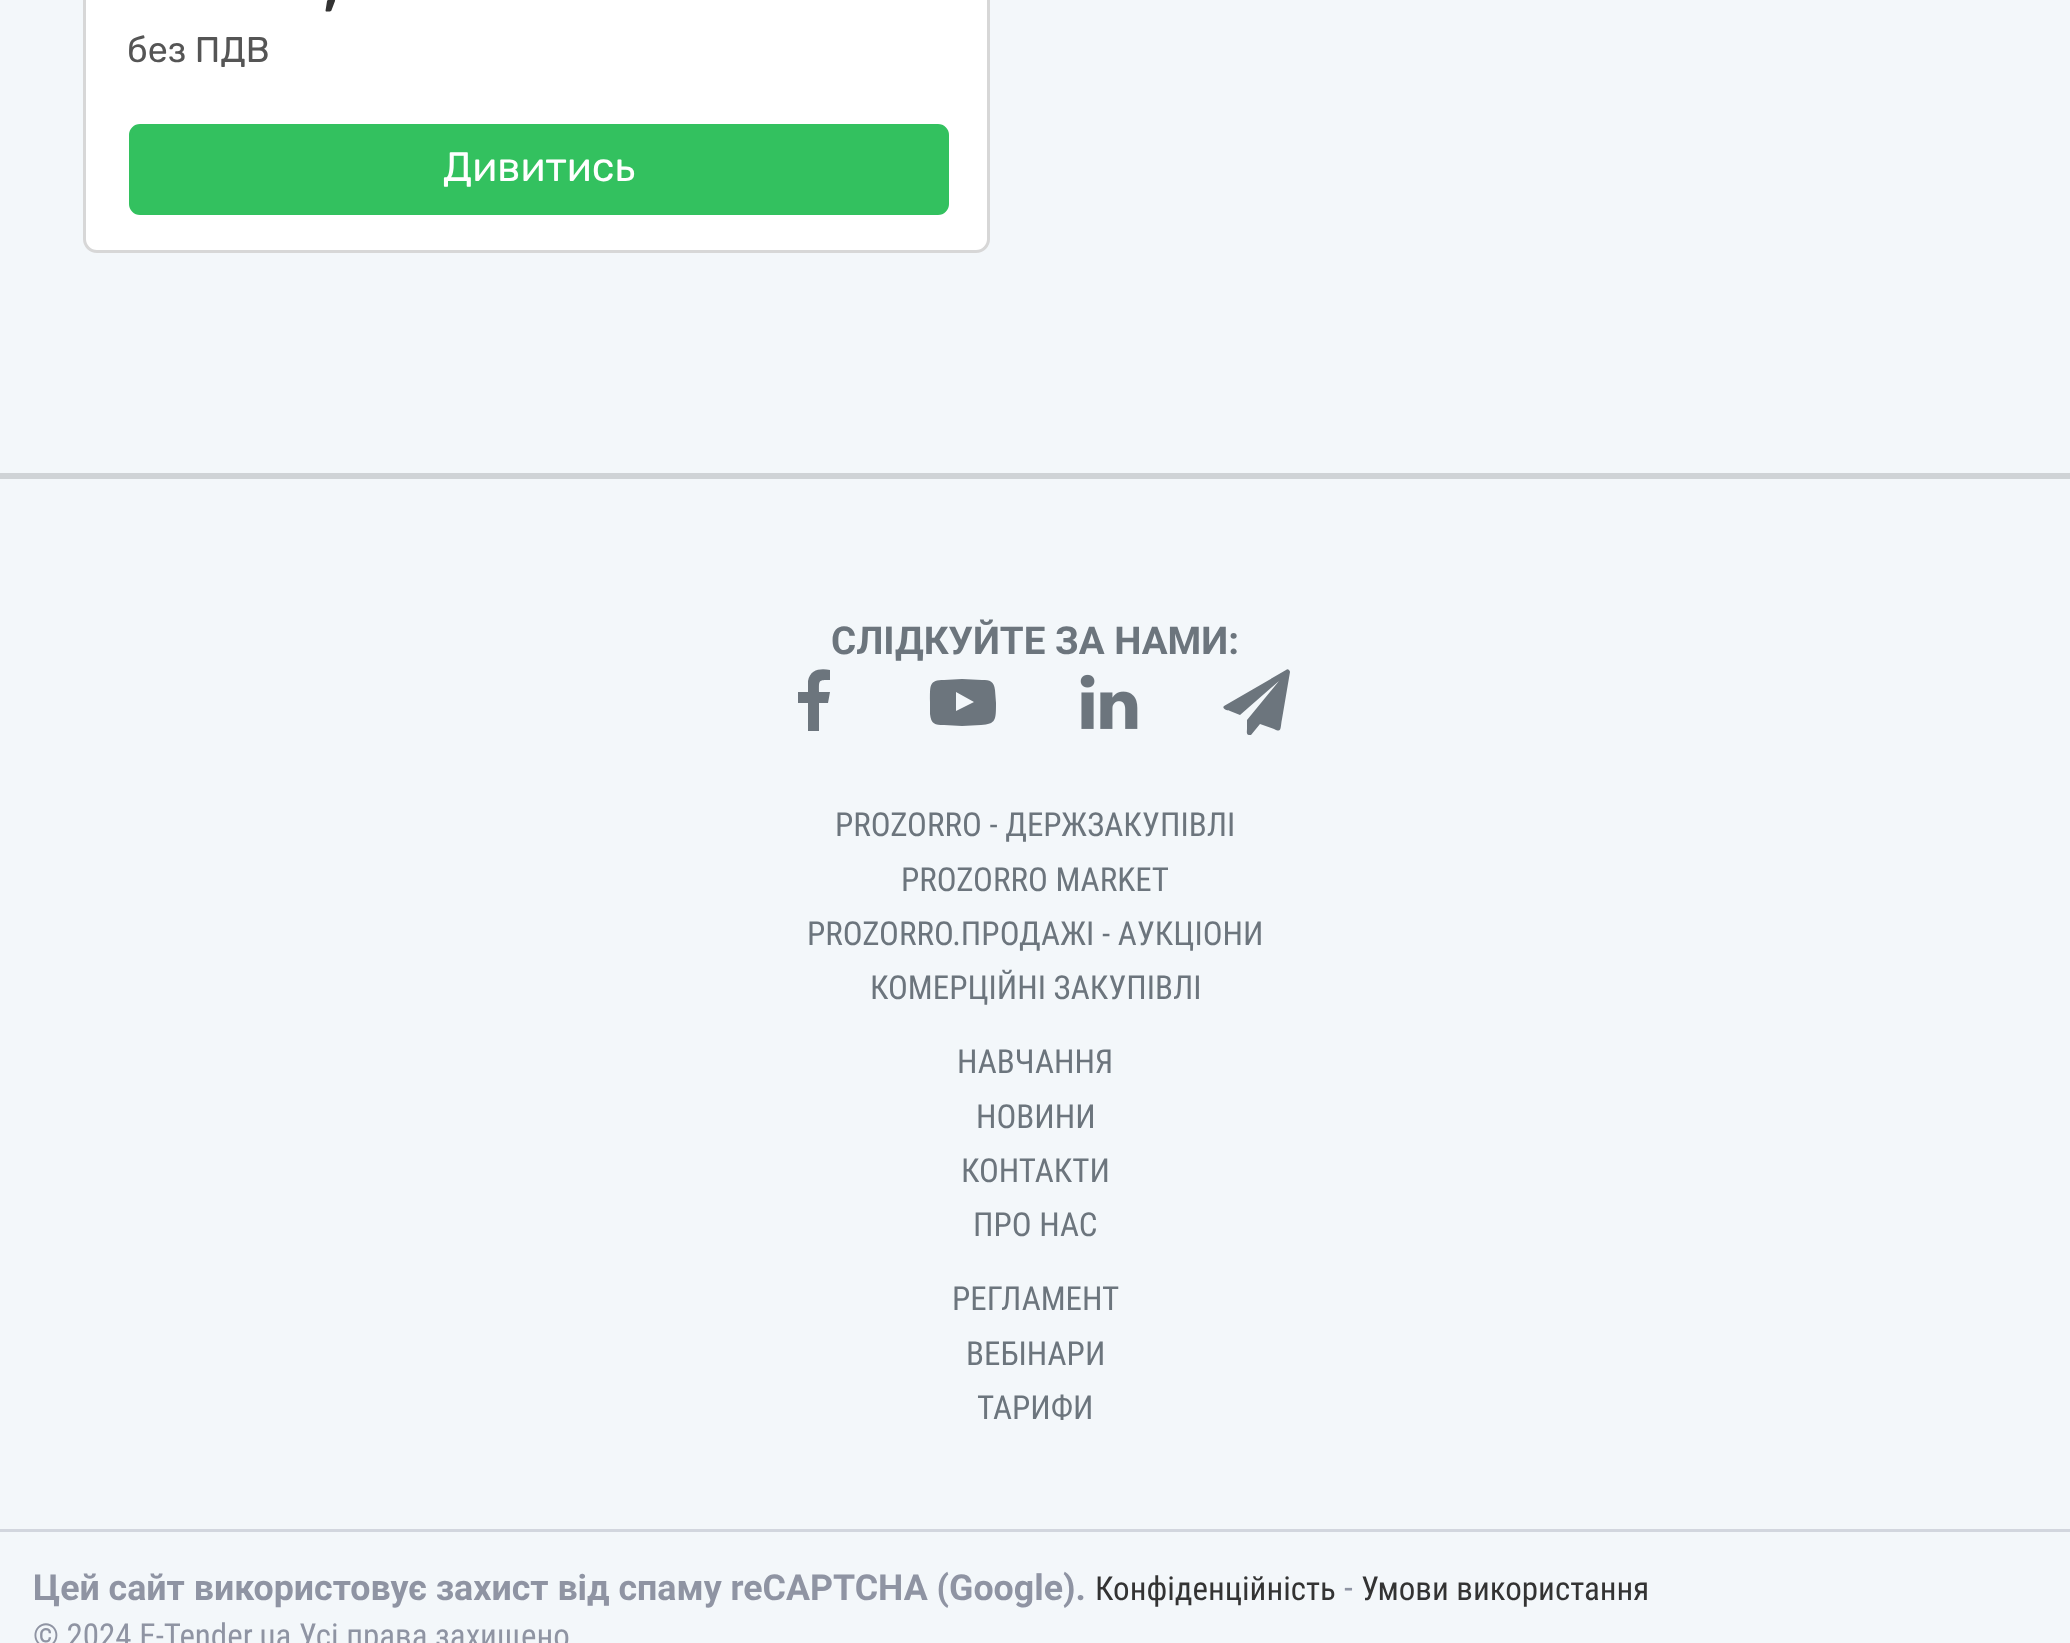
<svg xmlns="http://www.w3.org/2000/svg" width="2070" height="1643">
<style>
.a{font:bold 47px Rubik;fill:#333}
.b{font:35.75px Rubik;fill:#555}
.c{font:41.25px Rubik;fill:#fff}
.d{font:bold 38.5px Roboto;fill:#6c757d}
.e{font:33px Roboto Condensed;fill:#6c757d}
.f{font:bold 35.75px Roboto;fill:#8f94a3}
.g{font:33px Roboto Condensed;fill:#333}
.h{font:35.75px Roboto Condensed;fill:#8f94a3}
.i{font:33px Roboto Condensed;fill:#8f94a3}
</style>
<rect width="100%" height="100%" fill="#f3f7fa"/>
<rect fill="#fff" stroke="#d7d7d7" stroke-width="3" x="84.5" y="-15.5" width="904" height="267" rx="12.5"/>
<rect fill="#33c15f" stroke="#33c15f" stroke-width="3" x="130.5" y="125.5" width="817" height="88" rx="9.5"/>
<path fill="#cfd3d6" d="M0 473h2070v6H0z"/>
<path fill="#6c757d" d="M830 670v10c-12 0-11 0-11 12h11l-2 11h-9v28h-11v-28h-10v-11h10v-11c2-12 13-13 22-11z"/>
<path fill="#6c757d" d="M956 711l18-9l-18-10zm6-32l20 1c8 0 12 1 13 10l1 13c0 17 0 21-15 22l-19 1l-18-1c-9 0-13-1-14-11v-12c0-17-1-22 14-22z"/>
<image href="1.png" x="1080" y="674" width="58" height="55"/>
<path fill="#6c757d" d="M1289 670c0 0 1 1 1 2l-8 47c-2 10 0 14-8 10l-14-5l-9 11h-2c-3 0-2-4-2-6v-9l32-39l-39 34l-10-4c-1 0-9-2-6-5l62-36c1-1 2-1 3 0z"/>
<path fill="#d2d6de" d="M0 1529h2070v3H0z"/>
<text class="a" x="324" y="8">,</text>
<text class="b" x="127" y="62">без ПДВ</text>
<text class="c" x="443" y="181">Дивитись</text>
<text class="d" x="831" y="654">СЛІДКУЙТЕ ЗА НАМИ:</text>
<text class="e" x="835" y="836">PROZORRO - ДЕРЖЗАКУПІВЛІ</text>
<text class="e" x="901" y="891">PROZORRO MARKET</text>
<text class="e" x="807" y="945">PROZORRO.ПРОДАЖІ - АУКЦІОНИ</text>
<text class="e" x="870" y="999">КОМЕРЦІЙНІ ЗАКУПІВЛІ</text>
<text class="e" x="957" y="1073">НАВЧАННЯ</text>
<text class="e" x="976" y="1128">НОВИНИ</text>
<text class="e" x="961" y="1182">КОНТАКТИ</text>
<text class="e" x="973" y="1236">ПРО НАС</text>
<text class="e" x="952" y="1310">РЕГЛАМЕНТ</text>
<text class="e" x="966" y="1365">ВЕБІНАРИ</text>
<text class="e" x="977" y="1419">ТАРИФИ</text>
<text class="f" x="33" y="1600">Цей сайт використовує захист від спаму reCAPTCHA (Google).</text>
<text class="g" x="1095" y="1600">Конфіденційність</text>
<text class="h" x="1344" y="1600">-</text>
<text class="g" x="1361" y="1600">Умови використання</text>
<text class="i" x="33" y="1647">© 2024 E-Tender.ua Усі права захищено</text>
</svg>
